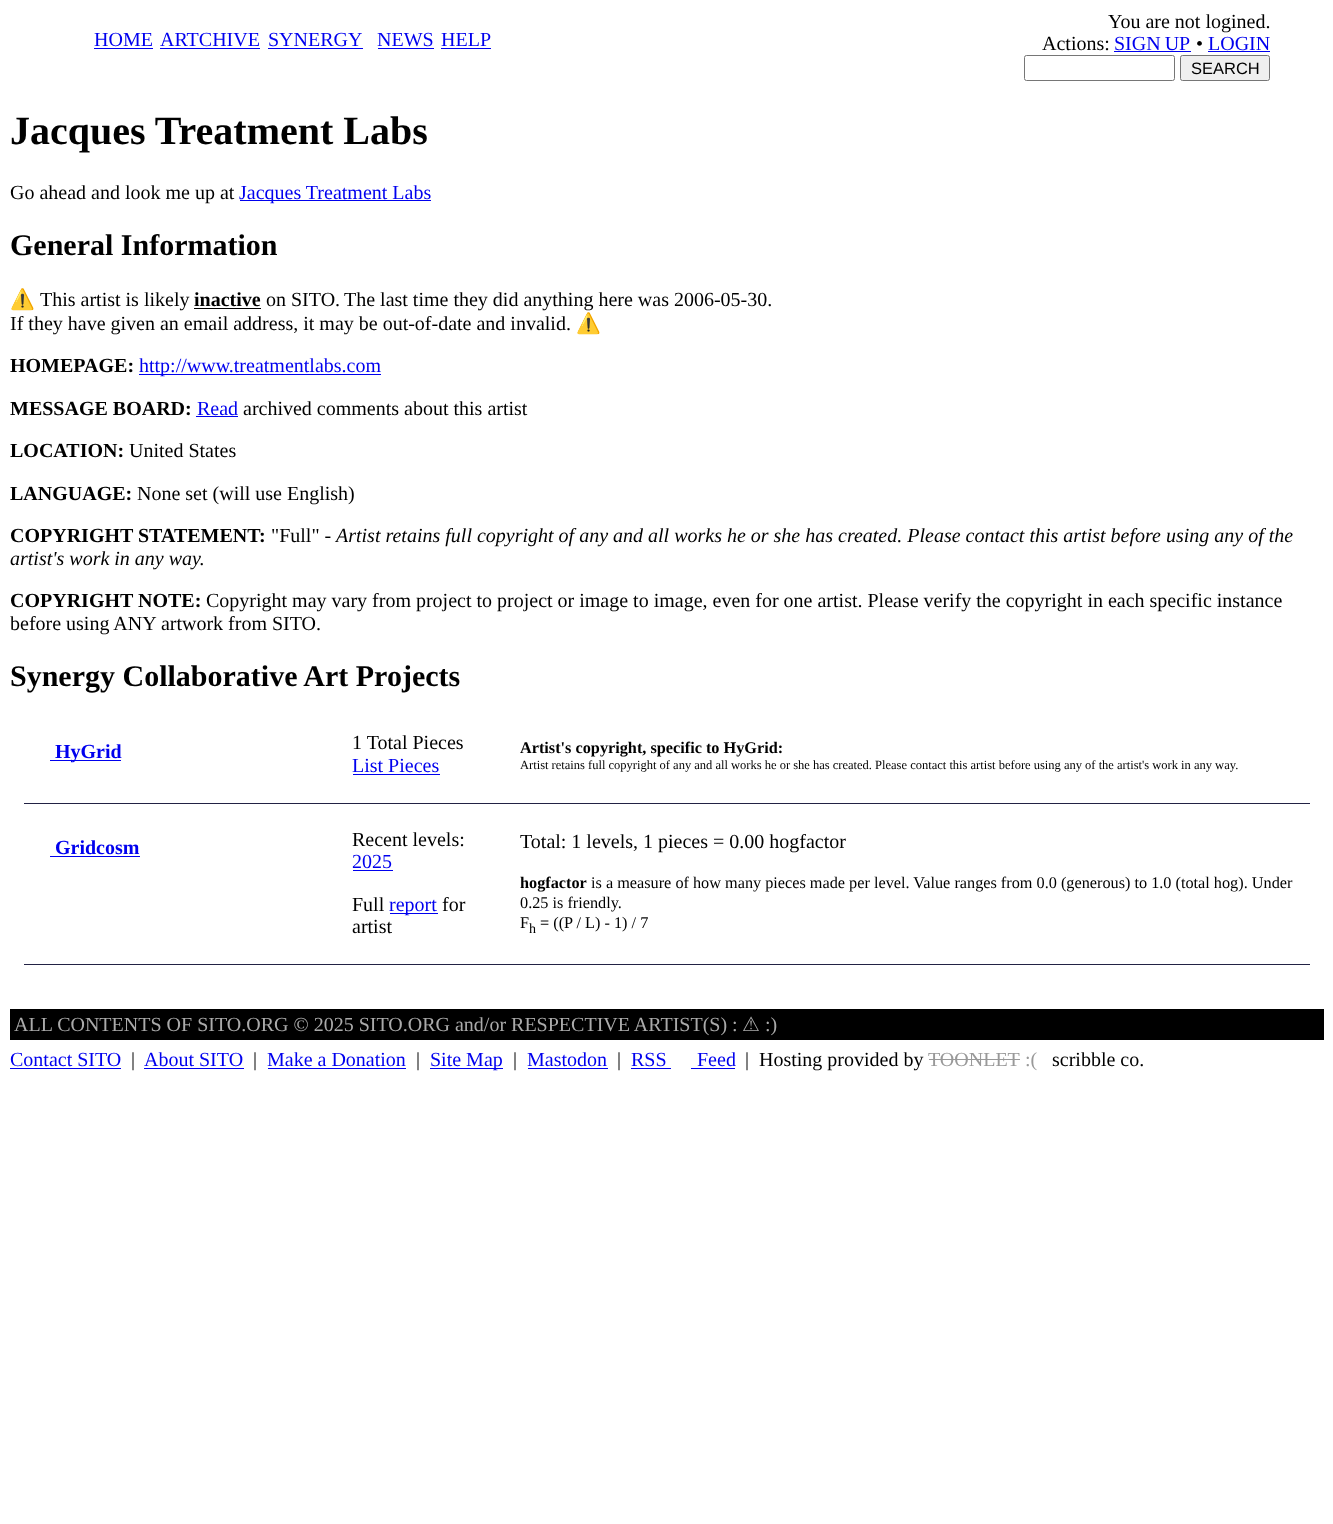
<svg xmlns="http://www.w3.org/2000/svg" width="1333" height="1524">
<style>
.a{font:20px Liberation Serif;fill:#00e}
.b{font:20px Liberation Serif;fill:#000}
.c{font:16.5px Liberation Sans;fill:#000}
.d{font:bold 40px Liberation Serif;fill:#000}
.e{font:bold 30px Liberation Serif;fill:#000}
.f{font:20px Noto Color Emoji;fill:#000}
.g{font:bold 20px Liberation Serif;fill:#000}
.h{font:italic 20px Liberation Serif;fill:#000}
.i{font:bold 20px Liberation Serif;fill:#00e}
.j{font:bold 16.25px Liberation Serif;fill:#000}
.k{font:12.5px Liberation Serif;fill:#000}
.l{font:16.25px Liberation Serif;fill:#000}
.m{font:14px Liberation Serif;fill:#000}
.n{font:20px Liberation Serif;fill:#aaa}
.o{font:20px DejaVu Sans;fill:#aaa}
.p{font:20px Liberation Serif;fill:#999}
</style>
<rect width="100%" height="100%" fill="#fff"/>
<path fill="#00e" d="M94 48h59v1H94z"/>
<path fill="#00e" d="M160 48h100v1H160z"/>
<path fill="#00e" d="M268 48h95v1H268z"/>
<path fill="#00e" d="M378 48h56v1H378z"/>
<path fill="#00e" d="M441 48h50v1H441z"/>
<path fill="#00e" d="M1114 51h77v1H1114z"/>
<path fill="#00e" d="M1208 51h62v1H1208z"/>
<rect fill="none" stroke="#767676" x="1024.5" y="55.5" width="150" height="25" rx="2"/>
<rect fill="#efefef" stroke="#767676" x="1180.5" y="55.5" width="89" height="25" rx="2"/>
<path fill="#00e" d="M240 200h191v1H240z"/>
<path fill="#000" d="M194 308h67v1H194z"/>
<path fill="#00e" d="M139 374h242v1H139z"/>
<path fill="#00e" d="M196 416h42v1H196z"/>
<path fill="#00e" d="M50 760h71v1H50z"/>
<path fill="#00e" d="M353 774h87v1H353z"/>
<path fill="#224" d="M24 803h1286v1H24z"/>
<path fill="#00e" d="M50 856h90v1H50z"/>
<path fill="#00e" d="M353 870h40v1H353z"/>
<path fill="#00e" d="M390 913h48v1H390z"/>
<path fill="#224" d="M24 964h1286v1H24z"/>
<path fill="#000" d="M10 1009h1314v31H10z"/>
<path fill="#00e" d="M10 1068h111v1H10z"/>
<path fill="#00e" d="M144 1068h100v1H144z"/>
<path fill="#00e" d="M268 1068h138v1H268z"/>
<path fill="#00e" d="M430 1068h73v1H430z"/>
<path fill="#00e" d="M528 1068h80v1H528z"/>
<path fill="#00e" d="M631 1068h40v1H631z"/>
<path fill="#00e" d="M691 1068h44v1H691z"/>
<path fill="#999" d="M929 1059h91v1H929z"/>
<text class="a" x="94" y="46">HOME</text>
<text class="a" x="160" y="46">ARTCHIVE</text>
<text class="a" x="268" y="46">SYNERGY</text>
<text class="a" x="377" y="46">NEWS</text>
<text class="a" x="441" y="46">HELP</text>
<text class="b" x="1108" y="28">You are not logined.</text>
<text class="b" x="1042" y="50">Actions:</text>
<text class="a" x="1114" y="50" word-spacing="-1">SIGN UP</text>
<text class="b" x="1196" y="50">•</text>
<text class="a" x="1208" y="50">LOGIN</text>
<text class="c" x="1191" y="74">SEARCH</text>
<text class="d" x="10" y="144">Jacques Treatment Labs</text>
<text class="b" x="10" y="199">Go ahead and look me up at</text>
<text class="a" x="239" y="199">Jacques Treatment Labs</text>
<text class="e" x="10" y="255">General Information</text>
<text class="f" x="10" y="306">⚠️</text>
<text class="b" x="40" y="306">This artist is likely</text>
<text class="g" x="194" y="306">inactive</text>
<text class="b" x="266" y="306">on SITO.</text>
<text class="b" x="344" y="306">The last time they did anything here was 2006-05-30.</text>
<text class="b" x="10" y="330">If they have given an email address, it may be out-of-date and invalid.</text>
<text class="f" x="576" y="330">⚠️</text>
<text class="g" x="10" y="372">HOMEPAGE:</text>
<text class="a" x="139" y="372">http://www.treatmentlabs.com</text>
<text class="g" x="10" y="415">MESSAGE BOARD:</text>
<text class="a" x="197" y="415">Read</text>
<text class="b" x="243" y="415">archived comments about this artist</text>
<text class="g" x="10" y="457">LOCATION:</text>
<text class="b" x="129" y="457">United States</text>
<text class="g" x="10" y="500">LANGUAGE:</text>
<text class="b" x="137" y="500">None set (will use English)</text>
<text class="g" x="10" y="542">COPYRIGHT STATEMENT:</text>
<text class="b" x="271" y="542">"Full" -</text>
<text class="h" x="336" y="542">Artist retains full copyright of any and all works he or she has created. Please contact this artist before using any of the</text>
<text class="h" x="10" y="565">artist's work in any way.</text>
<text class="g" x="10" y="607">COPYRIGHT NOTE:</text>
<text class="b" x="206" y="607">Copyright may vary from project to project or image to image, even for one artist. Please verify the copyright in each specific instance</text>
<text class="b" x="10" y="630">before using ANY artwork from SITO.</text>
<text class="e" x="10" y="686">Synergy Collaborative Art Projects</text>
<text class="i" x="55" y="758">HyGrid</text>
<text class="b" x="352" y="749">1 Total Pieces</text>
<text class="a" x="352" y="772">List Pieces</text>
<text class="j" x="520" y="753">Artist's copyright, specific to HyGrid:</text>
<text class="k" x="520" y="769">Artist retains full copyright of any and all works he or she has created. Please contact this artist before using any of the artist's work in any way.</text>
<text class="i" x="55" y="854">Gridcosm</text>
<text class="b" x="352" y="846">Recent levels:</text>
<text class="a" x="352" y="868">2025</text>
<text class="b" x="352" y="911">Full</text>
<text class="a" x="389" y="911">report</text>
<text class="b" x="442" y="911">for</text>
<text class="b" x="352" y="933">artist</text>
<text class="b" x="520" y="848">Total: 1 levels, 1 pieces = 0.00 hogfactor</text>
<text class="j" x="520" y="888">hogfactor</text>
<text class="l" x="591" y="888">is a measure of how many pieces made per level. Value ranges from 0.0 (generous) to 1.0 (total hog). Under</text>
<text class="l" x="520" y="908">0.25 is friendly.</text>
<text class="l" x="520" y="928">F</text>
<text class="m" x="529" y="933">h</text>
<text class="l" x="540" y="928">= ((P / L) - 1) / 7</text>
<text class="n" x="14" y="1031">ALL CONTENTS OF SITO.ORG © 2025 SITO.ORG and/or RESPECTIVE ARTIST(S) :</text>
<text class="o" x="742" y="1031">⚠</text>
<text class="n" x="765" y="1031">:)</text>
<text class="a" x="10" y="1066">Contact SITO</text>
<text class="b" x="131" y="1066">|</text>
<text class="a" x="144" y="1066">About SITO</text>
<text class="b" x="253" y="1066">|</text>
<text class="a" x="267" y="1066">Make a Donation</text>
<text class="b" x="416" y="1066">|</text>
<text class="a" x="430" y="1066">Site Map</text>
<text class="b" x="513" y="1066">|</text>
<text class="a" x="527" y="1066">Mastodon</text>
<text class="b" x="617" y="1066">|</text>
<text class="a" x="631" y="1066">RSS</text>
<text class="a" x="697" y="1066">Feed</text>
<text class="b" xml:space="preserve" x="745" y="1066">|  Hosting provided by</text>
<text class="p" x="928" y="1066">TOONLET</text>
<text class="p" x="1025" y="1066">:(</text>
<text class="b" x="1052" y="1066">scribble co.</text>
</svg>
